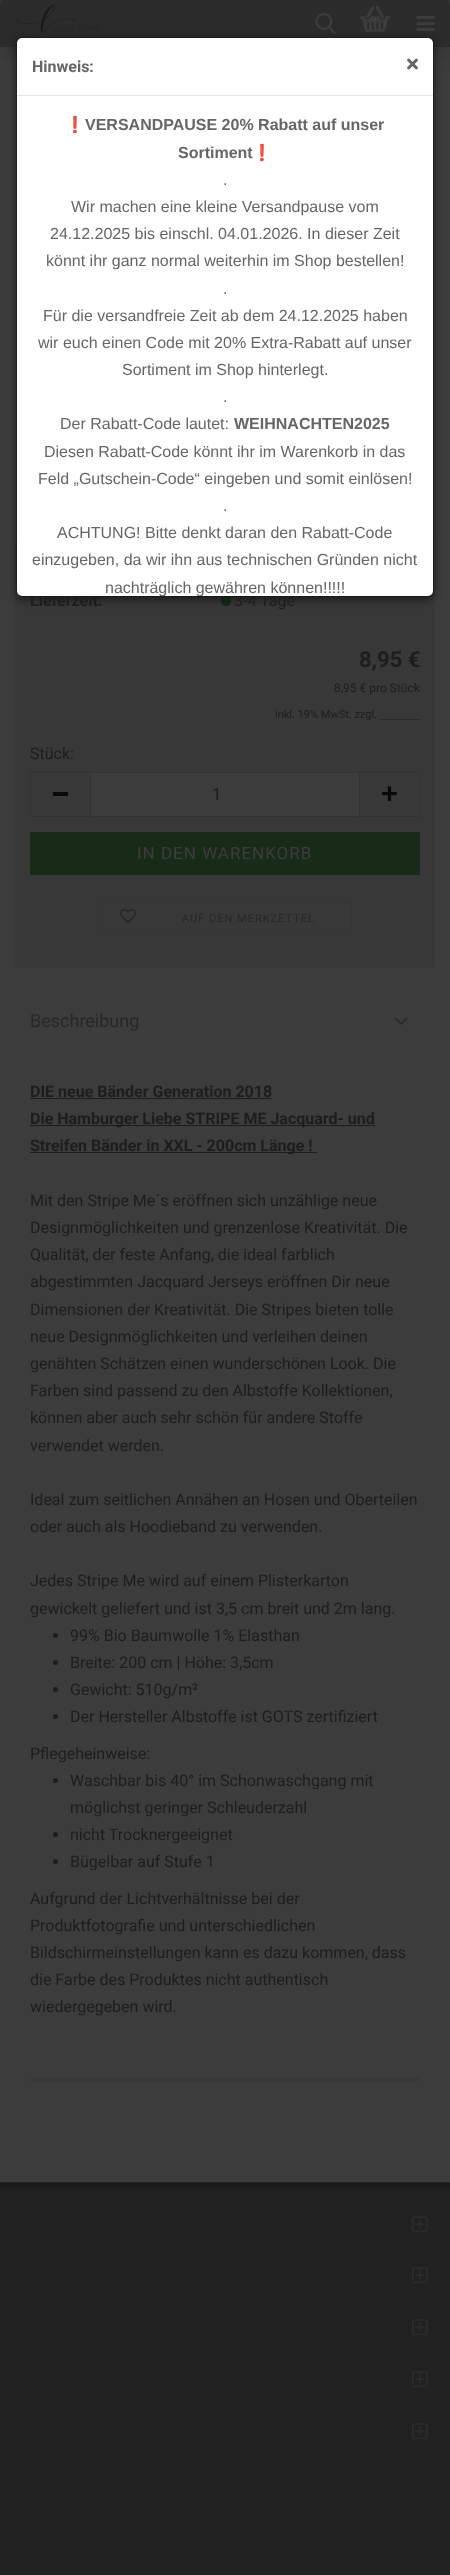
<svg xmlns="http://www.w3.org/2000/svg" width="450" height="2575">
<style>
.a{font:bold 16px Roboto;fill:#1d1d1d}
.b{font:16px Roboto;fill:#1d1d1d}
.c{font:16px Liberation Sans;fill:#666}
.d{font:bold 16px Liberation Sans;fill:#666}
.e{font:16px Noto Color Emoji;fill:#666}
.f{font:bold 16px Roboto;fill:#666}
.g{font:bold 22px Roboto;fill:#1d1d1d}
.h{font:12px Roboto;fill:#1d1d1d}
.i{font:11px Roboto;fill:#1d1d1d}
.j{font:17px Roboto;fill:#1d1d1d}
.k{font:17px Roboto;letter-spacing:1px;fill:#3c3c3c}
.l{font:11px Roboto;letter-spacing:1px;fill:#272727}
.m{font:18px Roboto;fill:#272727}
</style>
<defs>
<clipPath id="clip1"><path d="M17 96h416v500H17z"/></clipPath>
</defs>
<rect width="100%" height="100%" fill="#393939"/>
<rect fill="#3c3c3c" y="-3" width="450" height="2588" rx="10"/>
<rect fill="#09090959" filter="blur(12.5px)" y="-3" width="450" height="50" rx="10"/>
<path fill="#2b2b2b" d="M10-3h430c5.5 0 10 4.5 10 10v40h-450v-40c0-5.5 4.5-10 10-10z"/>
<image href="2.png" x="15" y="5" width="85" height="29"/>
<image href="3.png" x="315" y="13" width="21" height="21"/>
<image href="4.png" x="360" y="6" width="30" height="26"/>
<image href="5.png" x="416" y="16" width="19" height="15"/>
<rect fill="#383838" x="15" y="538" width="420" height="430" rx="2"/>
<image href="6.png" x="221" y="596" width="10" height="10"/>
<rect fill="#00000080" filter="blur(4.5px)" x="16" y="40" width="418" height="560" rx="6"/>
<path fill="#2b2b2b" d="M380 719h40v1H380z"/>
<path fill="#323232" d="M30 772h60v1H30z"/>
<path fill="#323232" d="M30 816h60v1H30z"/>
<path fill="#323232" d="M30 772h1v45H30z"/>
<path fill="#090909" d="M53 792h15v4H53z"/>
<path fill="#3c3c3c" stroke="#323232" d="M90.5 772.5h269v44H90.5z"/>
<path fill="#323232" d="M360 772h60v1H360z"/>
<path fill="#323232" d="M419 772h1v45H419z"/>
<path fill="#323232" d="M360 816h60v1H360z"/>
<image href="7.png" x="382" y="786" width="15" height="16"/>
<path fill="#182b19" d="M30 832h390v43H30z"/>
<path fill="none" stroke="#353535" d="M98.5 902.5h253v30H98.5z"/>
<image href="8.png" x="120" y="909" width="16" height="14"/>
<image href="9.png" x="394" y="1017" width="14" height="8"/>
<path fill="#383838" d="M30 2078h390v3H30z"/>
<path fill="#1d1d1d" d="M30 1098h242v1H30z"/>
<path fill="#1d1d1d" d="M30 1125h345v1H30z"/>
<path fill="#1d1d1d" d="M30 1152h287v1H30z"/>
<circle fill="#1d1d1d" cx="55.5" cy="1635.5" r="2.5"/>
<circle fill="#1d1d1d" cx="55.5" cy="1662.5" r="2.5"/>
<circle fill="#1d1d1d" cx="55.5" cy="1689.5" r="2.5"/>
<circle fill="#1d1d1d" cx="55.5" cy="1716.5" r="2.5"/>
<circle fill="#1d1d1d" cx="55.5" cy="1780.5" r="2.5"/>
<circle fill="#1d1d1d" cx="55.5" cy="1834.5" r="2.5"/>
<circle fill="#1d1d1d" cx="55.5" cy="1861.5" r="2.5"/>
<path fill="#212121" d="M0 2182h450v393H0z"/>
<image href="10.png" x="0" y="2183" width="450" height="10"/>
<image href="11.png" x="412" y="2216" width="16" height="17"/>
<image href="11.png" x="412" y="2267" width="16" height="17"/>
<image href="11.png" x="412" y="2319" width="16" height="17"/>
<image href="11.png" x="412" y="2371" width="16" height="17"/>
<image href="11.png" x="412" y="2423" width="16" height="17"/>
<text class="a" x="30" y="606">Lieferzeit:</text>
<text class="b" x="234" y="606">3-4 Tage</text>
<rect fill="#fff" x="17" y="38" width="416" height="558" rx="5"/>
<rect fill="none" stroke="#00000033" x="16.5" y="37.5" width="417" height="559" rx="5.5"/>
<g clip-path="url(#clip1)">
<text class="c" x="105" y="593">nachträglich gewähren können!!!!!</text>
</g>
<text class="c" x="32" y="565">einzugeben, da wir ihn aus technischen Gründen nicht</text>
<text class="c" x="57" y="538">ACHTUNG! Bitte denkt daran den Rabatt-Code</text>
<text class="c" x="223" y="511">.</text>
<text class="c" x="38" y="484">Feld „Gutschein-Code“ eingeben und somit einlösen!</text>
<text class="c" x="44" y="457">Diesen Rabatt-Code könnt ihr im Warenkorb in das</text>
<text class="d" x="234" y="429">WEIHNACHTEN2025</text>
<text class="c" x="60" y="429">Der Rabatt-Code lautet:</text>
<text class="c" x="223" y="402">.</text>
<text class="c" x="122" y="375">Sortiment im Shop hinterlegt.</text>
<text class="c" x="38" y="348">wir euch einen Code mit 20% Extra-Rabatt auf unser</text>
<text class="c" x="43" y="321">Für die versandfreie Zeit ab dem 24.12.2025 haben</text>
<text class="c" x="223" y="294">.</text>
<text class="c" x="46" y="266">könnt ihr ganz normal weiterhin im Shop bestellen!</text>
<text class="c" x="50" y="239">24.12.2025 bis einschl. 04.01.2026. In dieser Zeit</text>
<text class="c" x="71" y="212">Wir machen eine kleine Versandpause vom</text>
<text class="c" x="223" y="185">.</text>
<text class="d" x="178" y="158">Sortiment</text>
<text class="e" x="252" y="158">❗️</text>
<text class="d" x="85" y="130">VERSANDPAUSE 20% Rabatt auf unser</text>
<text class="e" x="65" y="130">❗️</text>
<image href="1.png" x="407" y="58" width="11" height="12"/>
<text class="f" x="32" y="72">Hinweis:</text>
<path fill="#e5e5e5" d="M17 95h416v1H17z"/>
<text class="g" x="359" y="667">8,95 €</text>
<text class="h" x="334" y="692">8,95 € pro Stück</text>
<text class="i" x="275" y="718">inkl. 19% MwSt. zzgl.</text>
<text class="b" x="30" y="759">Stück:</text>
<text class="j" x="212" y="800">1</text>
<text class="k" x="137" y="859">IN DEN WARENKORB</text>
<text class="l" x="182" y="922">AUF DEN MERKZETTEL</text>
<text class="m" x="30" y="1027">Beschreibung</text>
<text class="a" x="30" y="1097">DIE neue Bänder Generation 2018</text>
<text class="a" x="30" y="1124">Die Hamburger Liebe STRIPE ME Jacquard- und</text>
<text class="a" x="30" y="1151">Streifen Bänder in XXL - 200cm Länge !</text>
<text class="b" x="30" y="1206">Mit den Stripe Me´s eröffnen sich unzählige neue</text>
<text class="b" x="30" y="1233">Designmöglichkeiten und grenzenlose Kreativität. Die</text>
<text class="b" x="30" y="1260">Qualität, der feste Anfang, die ideal farblich</text>
<text class="b" x="30" y="1287">abgestimmten Jacquard Jerseys eröffnen Dir neue</text>
<text class="b" x="30" y="1315">Dimensionen der Kreativität. Die Stripes bieten tolle</text>
<text class="b" x="30" y="1342">neue Designmöglichkeiten und verleihen deinen</text>
<text class="b" x="30" y="1369">genähten Schätzen einen wunderschönen Look. Die</text>
<text class="b" x="30" y="1396">Farben sind passend zu den Albstoffe Kollektionen,</text>
<text class="b" x="30" y="1423">können aber auch sehr schön für andere Stoffe</text>
<text class="b" x="30" y="1451">verwendet werden.</text>
<text class="b" x="30" y="1505">Ideal zum seitlichen Annähen an Hosen und Oberteilen</text>
<text class="b" x="30" y="1532">oder auch als Hoodieband zu verwenden.</text>
<text class="b" x="30" y="1586">Jedes Stripe Me wird auf einem Plisterkarton</text>
<text class="b" x="30" y="1614">gewickelt geliefert und ist 3,5 cm breit und 2m lang.</text>
<text class="b" x="70" y="1641">99% Bio Baumwolle 1% Elasthan</text>
<text class="b" x="70" y="1668">Breite: 200 cm | Höhe: 3,5cm</text>
<text class="b" x="70" y="1695">Gewicht: 510g/m²</text>
<text class="b" x="70" y="1722">Der Hersteller Albstoffe ist GOTS zertifiziert</text>
<text class="b" x="30" y="1759">Pflegeheinweise:</text>
<text class="b" x="70" y="1786">Waschbar bis 40° im Schonwaschgang mit</text>
<text class="b" x="70" y="1813">möglichst geringer Schleuderzahl</text>
<text class="b" x="70" y="1840">nicht Trocknergeeignet</text>
<text class="b" x="70" y="1867">Bügelbar auf Stufe 1</text>
<text class="b" x="30" y="1904">Aufgrund der Lichtverhältnisse bei der</text>
<text class="b" x="30" y="1931">Produktfotografie und unterschiedlichen</text>
<text class="b" x="30" y="1958">Bildschirmeinstellungen kann es dazu kommen, dass</text>
<text class="b" x="30" y="1985">die Farbe des Produktes nicht authentisch</text>
<text class="b" x="30" y="2012">wiedergegeben wird.</text>
</svg>
